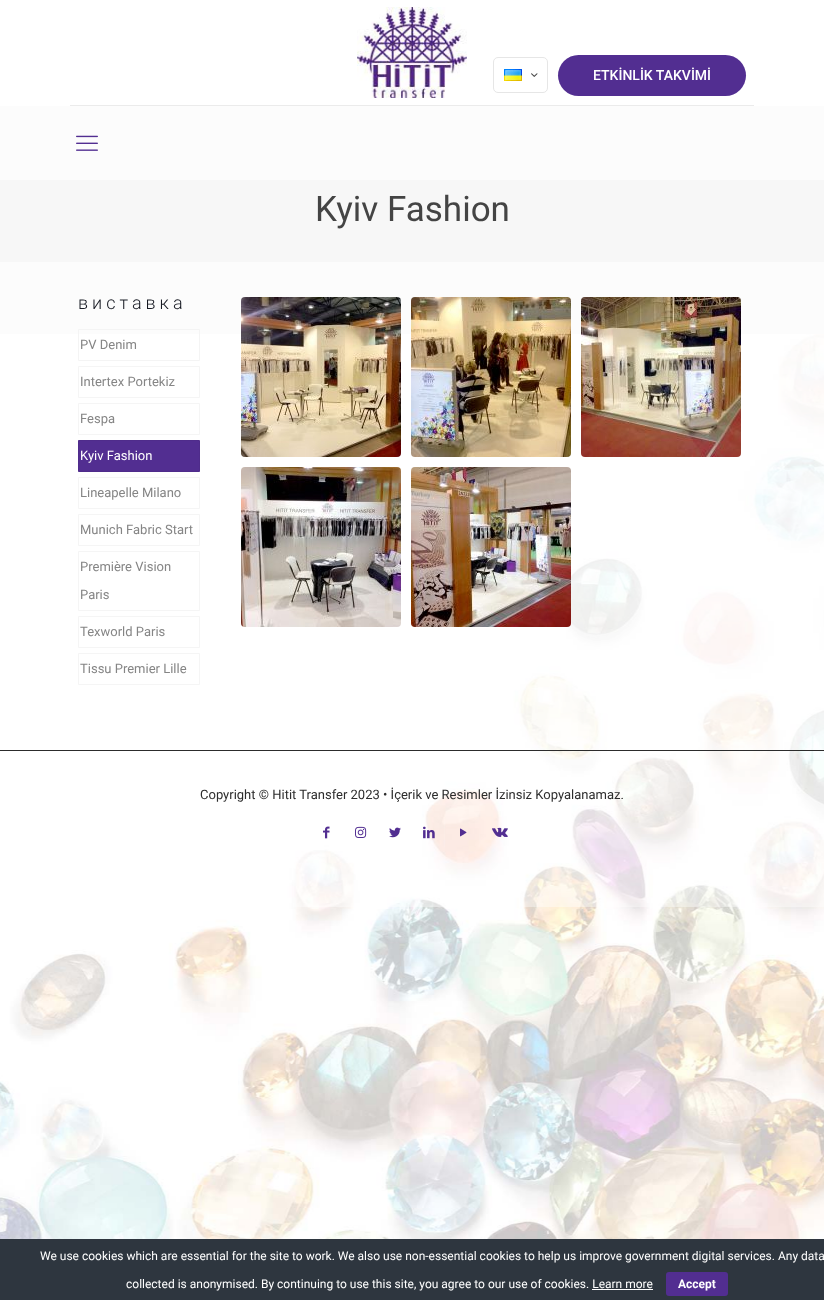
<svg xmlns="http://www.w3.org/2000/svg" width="824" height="1300">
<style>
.a{font:500 14px Roboto;fill:#fff}
.b{font:35px Roboto;fill:#444}
.c{font:300 18px Roboto;letter-spacing:4px;fill:#161922}
.d{font:13px Roboto;fill:#858585}
.e{font:13px Roboto;fill:#fff}
.f{font:13px Roboto;fill:#2c2c2c}
.g{font:12px Roboto;fill:#fff}
.h{font:bold 12px Roboto;fill:#fff}
</style>
<rect width="100%" height="100%" fill="#fcfcfc"/>
<image href="1.png" x="0" y="334" width="824" height="905"/>
<path fill="#ffffff66" d="M293 334h531v573H293z"/>
<path fill="#fff" d="M0 0h824v106H0z"/>
<path fill="#ebebeb" d="M70 105h684v1H70z"/>
<image href="2.png" x="357" y="7" width="110" height="91"/>
<image href="3.png" x="76" y="135" width="22" height="16"/>
<rect fill="none" stroke="#e6e6e6" x="493.5" y="57.5" width="54" height="35" rx="4.5"/>
<image href="4.png" x="504" y="69" width="18" height="12"/>
<image href="5.png" x="531" y="73" width="7" height="4"/>
<rect fill="#522e91" x="558" y="55" width="188" height="41" rx="20.5"/>
<path fill="#f7f7f7" d="M0 180h824v82H0z"/>
<path fill="#ffffff66" d="M520 335h304v415H520z"/>
<path fill="none" stroke="#f4f4f4" d="M78.5 329.5h121v31H78.5z"/>
<path fill="none" stroke="#f5f5f5" d="M78.5 366.5h121v31H78.5z"/>
<path fill="none" stroke="#f5f5f5" d="M78.5 403.5h121v31H78.5z"/>
<path fill="#522e91" stroke="#4f2c8b" d="M78.5 440.5h121v31H78.5z"/>
<path fill="none" stroke="#f5f5f5" d="M78.5 477.5h121v31H78.5z"/>
<path fill="none" stroke="#f5f5f5" d="M78.5 514.5h121v31H78.5z"/>
<path fill="none" stroke="#f5f5f5" d="M78.5 551.5h121v59H78.5z"/>
<path fill="none" stroke="#f5f5f5" d="M78.5 616.5h121v31H78.5z"/>
<path fill="none" stroke="#f5f5f5" d="M78.5 653.5h121v31H78.5z"/>
<image href="6.png" x="241" y="297" width="160" height="160"/>
<image href="7.png" x="411" y="297" width="160" height="160"/>
<image href="8.png" x="581" y="297" width="160" height="160"/>
<image href="9.png" x="241" y="467" width="160" height="160"/>
<image href="10.png" x="411" y="467" width="160" height="160"/>
<path fill="#2c2c2c" d="M0 750h824v1H0z"/>
<image href="11.png" x="323" y="826" width="7" height="13"/>
<image href="12.png" x="355" y="826" width="12" height="12"/>
<image href="13.png" x="389" y="827" width="12" height="11"/>
<path fill="#ffffff1a" d="M444 819h1v28H444z"/>
<image href="14.png" x="423" y="826" width="12" height="13"/>
<path fill="#ffffff1a" d="M479 834h1v13H479z"/>
<image href="15.png" x="460" y="828" width="7" height="9"/>
<image href="16.png" x="492" y="827" width="16" height="10"/>
<path fill="#2e363f" d="M0 1239h824v61H0z"/>
<rect fill="#522e91" x="666" y="1272" width="62" height="24" rx="3"/>
<path fill="#fff" d="M592 1289h61v1H592z"/>
<text class="a" x="593" y="80">ETKİNLİK TAKVİMİ</text>
<text class="b" x="315" y="221">Kyiv Fashion</text>
<text class="c" x="78" y="309">виставка</text>
<text class="d" x="80" y="349">PV Denim</text>
<text class="d" x="80" y="386">Intertex Portekiz</text>
<text class="d" x="80" y="423">Fespa</text>
<text class="e" x="80" y="460">Kyiv Fashion</text>
<text class="d" x="80" y="497">Lineapelle Milano</text>
<text class="d" x="80" y="534">Munich Fabric Start</text>
<text class="d" x="80" y="571">Première Vision</text>
<text class="d" x="80" y="599">Paris</text>
<text class="d" x="80" y="636">Texworld Paris</text>
<text class="d" x="80" y="673">Tissu Premier Lille</text>
<text class="f" x="200" y="799">Copyright © Hitit Transfer 2023 • İçerik ve Resimler İzinsiz Kopyalanamaz.</text>
<text class="g" x="40" y="1260">We use cookies which are essential for the site to work. We also use non-essential cookies to help us improve government digital services. Any data</text>
<text class="g" x="126" y="1288">collected is anonymised. By continuing to use this site, you agree to our use of cookies. Learn more</text>
<text class="h" x="678" y="1288">Accept</text>
</svg>
